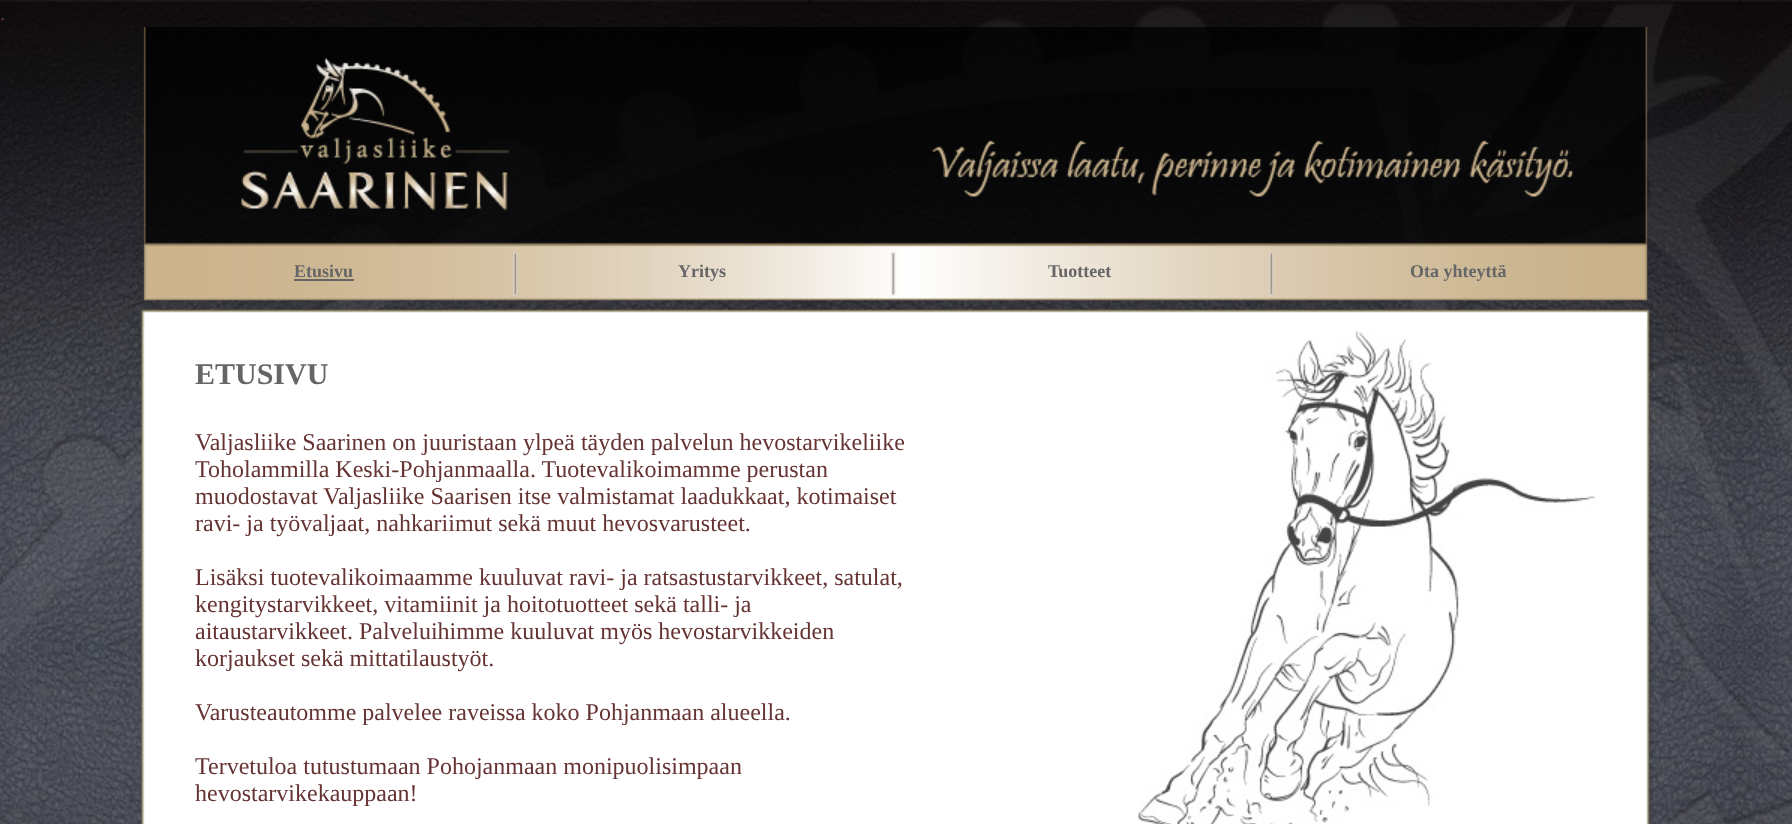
<svg xmlns="http://www.w3.org/2000/svg" width="1792" height="824">
<style>
.a{font:21px Liberation Serif;fill:#633}
.b{font:bold 18px Liberation Serif;fill:#666}
.c{font:bold 30px Liberation Serif;fill:#666}
.d{font:24px Liberation Serif;fill:#633}
</style>
<rect width="100%" height="100%" fill="#fff"/>
<image href="1.png" x="0" y="0" width="1792" height="824"/>
<image href="2.png" x="143" y="27" width="1505" height="274"/>
<path fill="#666" d="M294 279h60v2H294z"/>
<image href="3.png" x="513" y="252" width="5" height="44"/>
<image href="4.png" x="891" y="252" width="5" height="44"/>
<image href="5.png" x="1269" y="252" width="5" height="44"/>
<image href="6.png" x="140" y="309" width="1512" height="18"/>
<image href="7.png" x="139" y="327" width="1514" height="497"/>
<image href="8.png" x="1138" y="330" width="457" height="494"/>
<text class="a" x="0" y="20">.</text>
<text class="b" x="294" y="277">Etusivu</text>
<text class="b" x="678" y="277">Yritys</text>
<text class="b" x="1048" y="277">Tuotteet</text>
<text class="b" x="1410" y="277">Ota yhteyttä</text>
<text class="c" x="195" y="384">ETUSIVU</text>
<text class="d" x="195" y="450">Valjasliike Saarinen on juuristaan ylpeä täyden palvelun hevostarvikeliike</text>
<text class="d" x="195" y="477">Toholammilla Keski-Pohjanmaalla. Tuotevalikoimamme perustan</text>
<text class="d" x="195" y="504">muodostavat Valjasliike Saarisen itse valmistamat laadukkaat, kotimaiset</text>
<text class="d" x="195" y="531">ravi- ja työvaljaat, nahkariimut sekä muut hevosvarusteet.</text>
<text class="d" x="195" y="585">Lisäksi tuotevalikoimaamme kuuluvat ravi- ja ratsastustarvikkeet, satulat,</text>
<text class="d" x="195" y="612">kengitystarvikkeet, vitamiinit ja hoitotuotteet sekä talli- ja</text>
<text class="d" x="195" y="639">aitaustarvikkeet. Palveluihimme kuuluvat myös hevostarvikkeiden</text>
<text class="d" x="195" y="666">korjaukset sekä mittatilaustyöt.</text>
<text class="d" x="195" y="720">Varusteautomme palvelee raveissa koko Pohjanmaan alueella.</text>
<text class="d" x="195" y="774">Tervetuloa tutustumaan Pohojanmaan monipuolisimpaan</text>
<text class="d" x="195" y="801">hevostarvikekauppaan!</text>
</svg>
